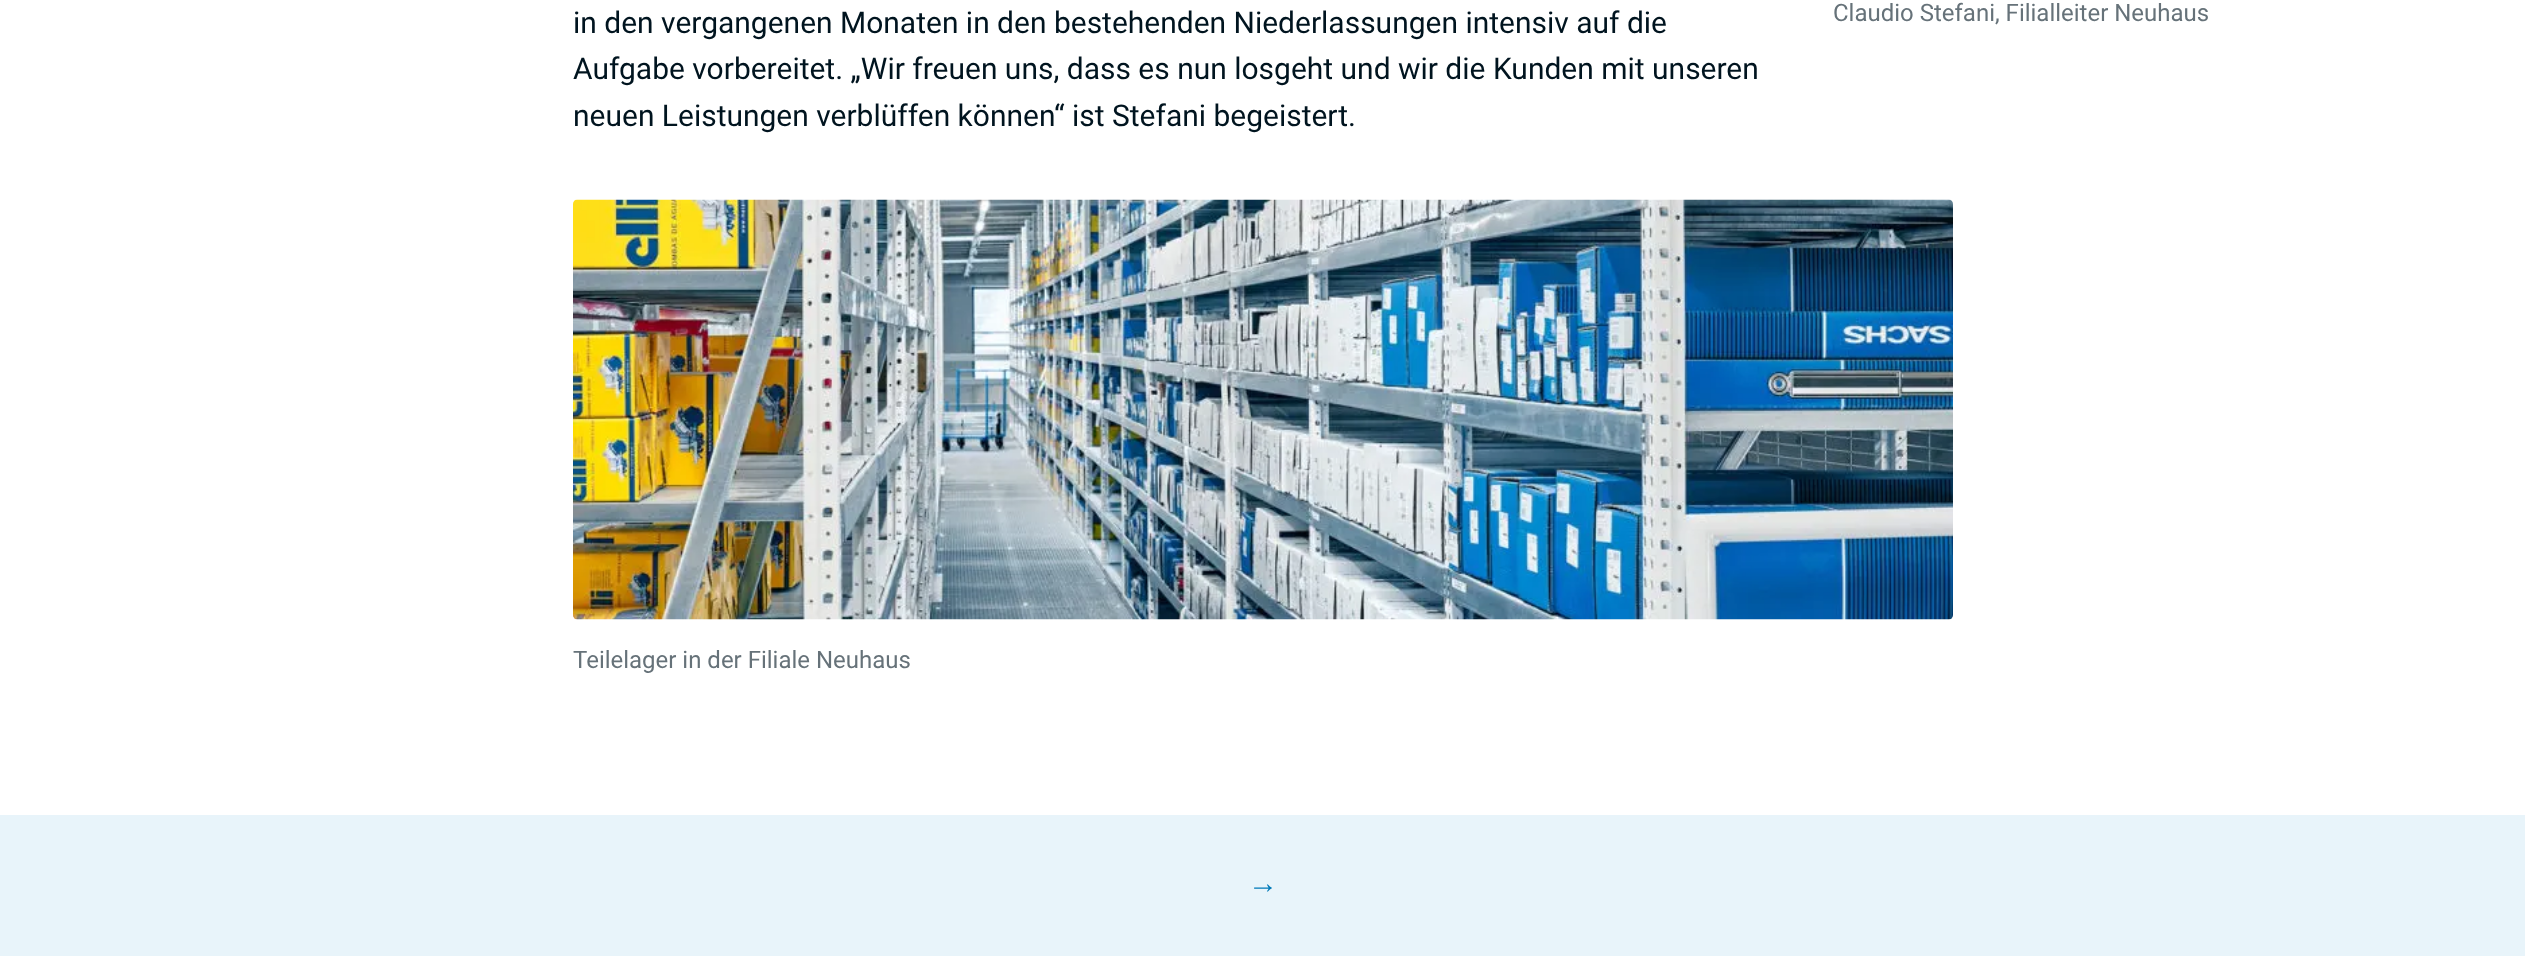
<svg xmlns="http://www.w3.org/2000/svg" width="2525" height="956">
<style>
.a{font:30px Roboto;fill:#00141f}
.b{font:24px Roboto;fill:#667279}
.c{font:30px Liberation Serif;fill:#007ab9}
</style>
<rect width="100%" height="100%" fill="#fff"/>
<image href="1.png" x="573" y="199" width="1380" height="421"/>
<path fill="#e8f4fa" d="M0 815h2525v141H0z"/>
<text class="a" x="573" y="33">in den vergangenen Monaten in den bestehenden Niederlassungen intensiv auf die</text>
<text class="a" x="573" y="79">Aufgabe vorbereitet. „Wir freuen uns, dass es nun losgeht und wir die Kunden mit unseren</text>
<text class="a" x="573" y="126">neuen Leistungen verblüffen können“ ist Stefani begeistert.</text>
<text class="b" x="1833" y="21">Claudio Stefani, Filialleiter Neuhaus</text>
<text class="b" x="573" y="668">Teilelager in der Filiale Neuhaus</text>
<text class="c" x="1248" y="893">→</text>
</svg>
